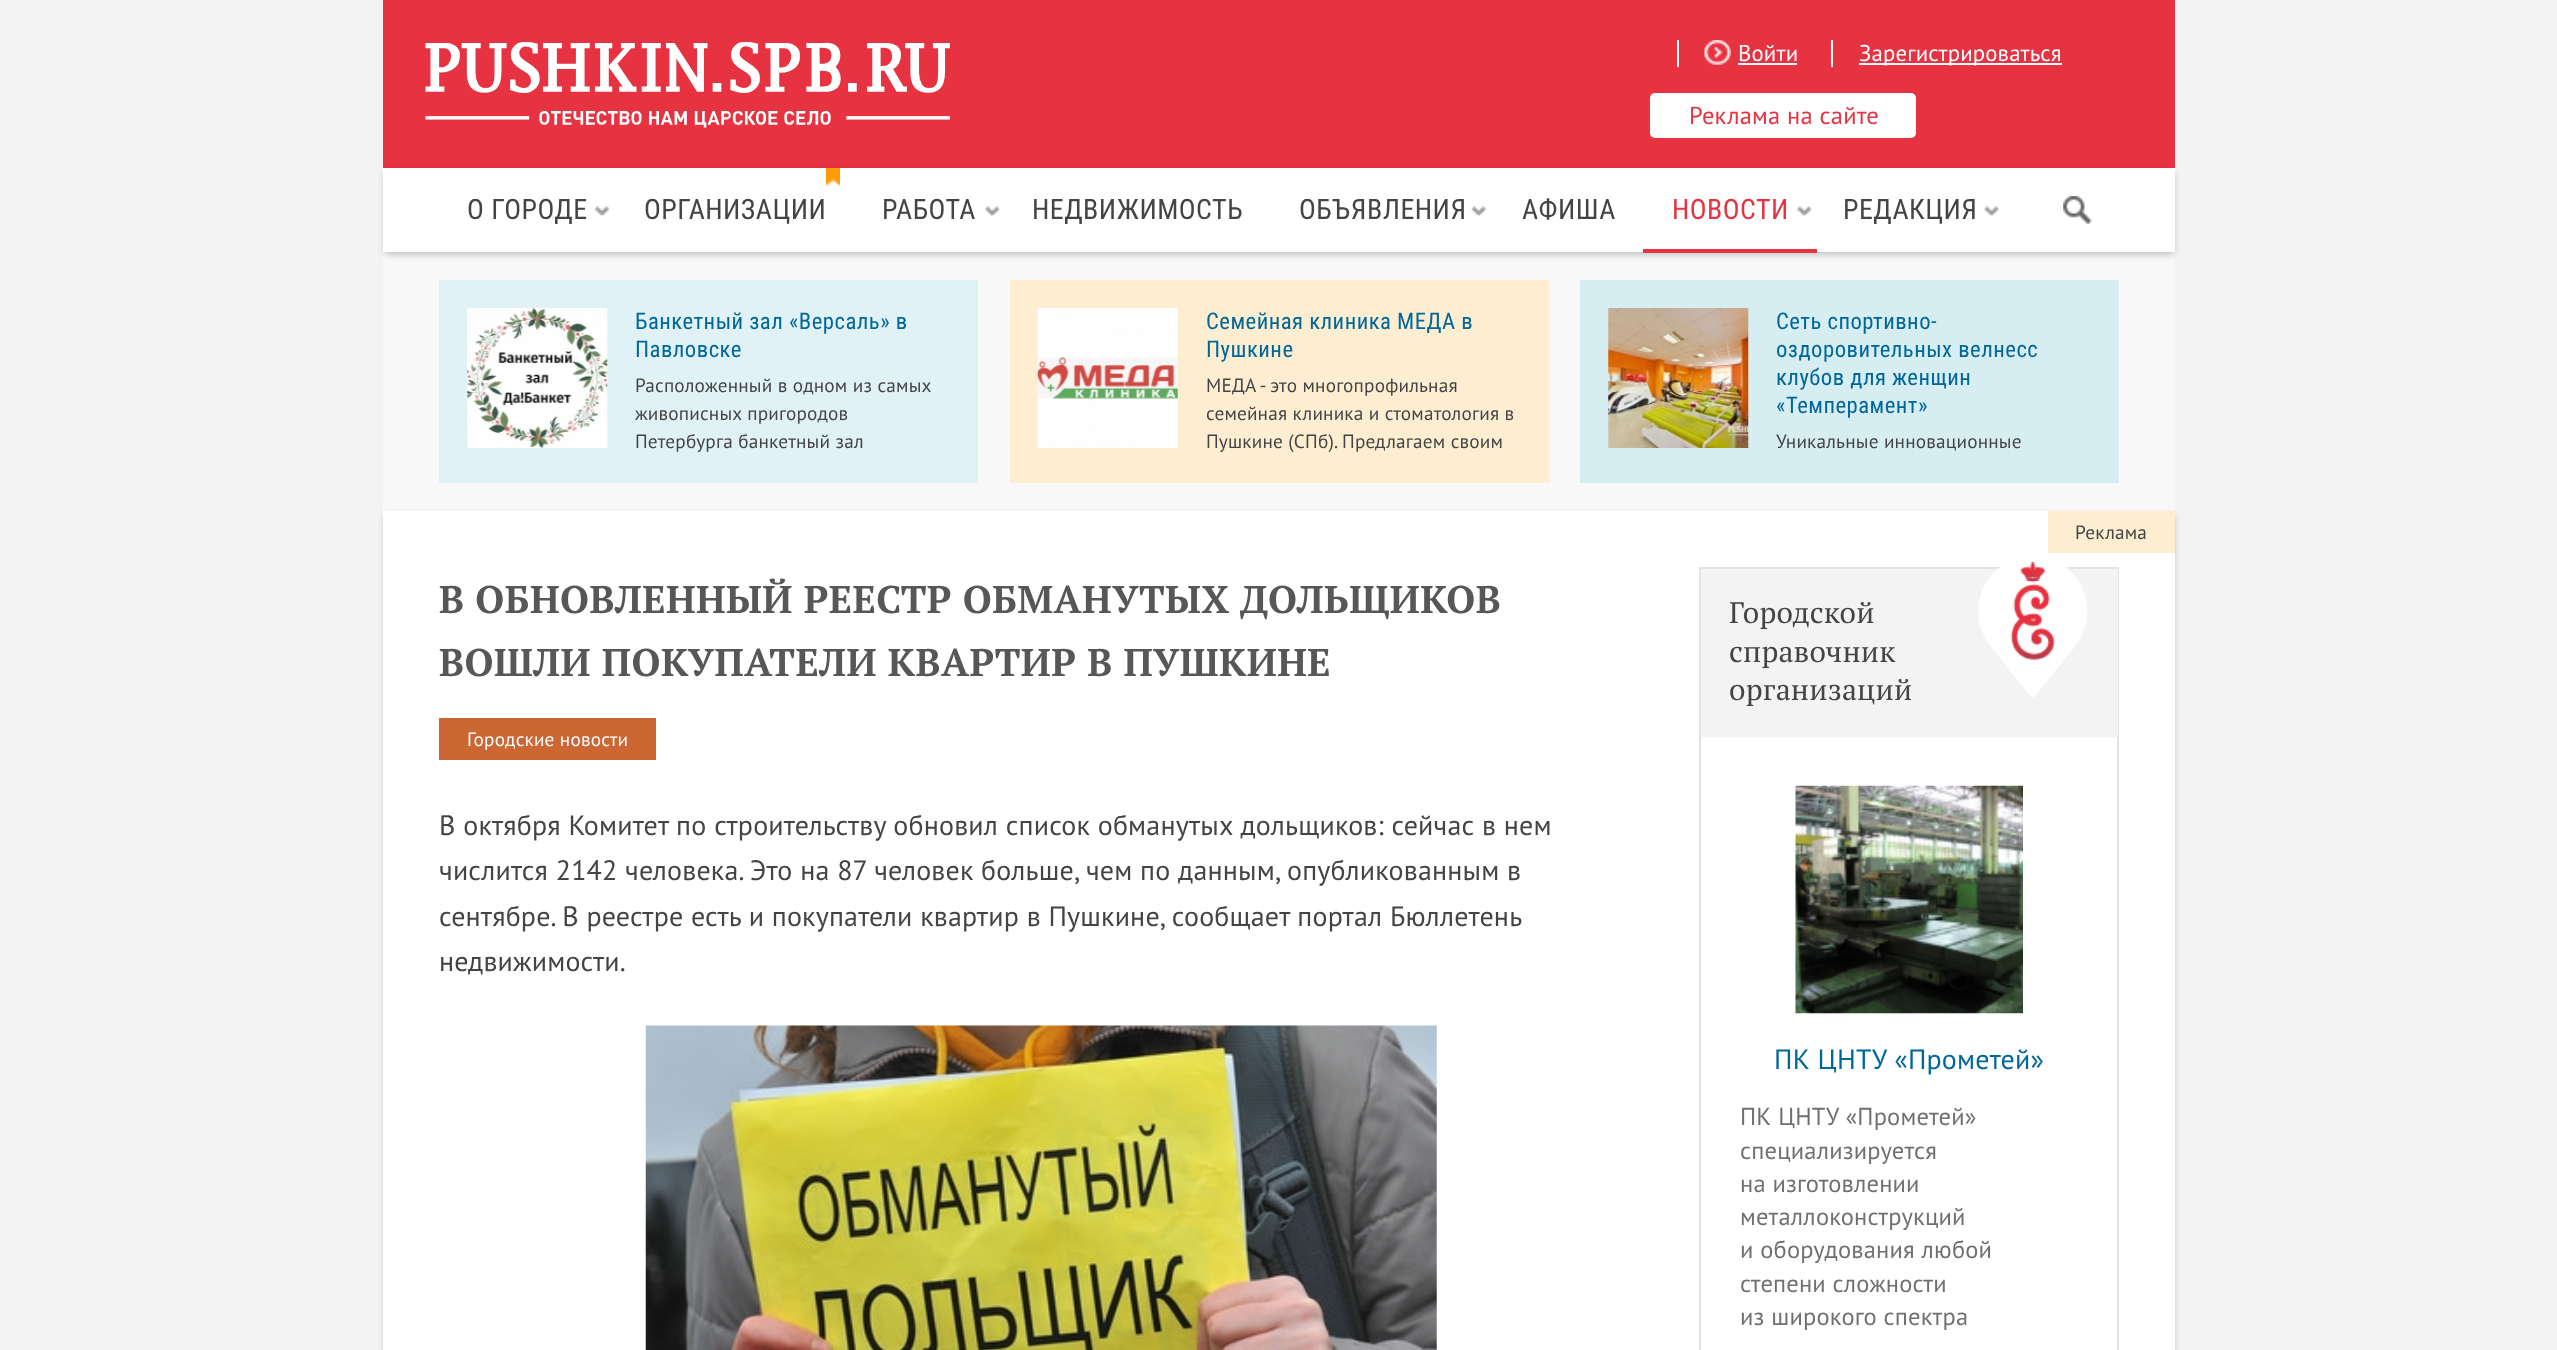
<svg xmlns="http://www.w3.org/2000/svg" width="2557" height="1350">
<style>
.a{font:22.75px PT Sans;letter-spacing:0.18px;fill:#fff}
.b{font:24.5px PT Sans;letter-spacing:0.18px;fill:#e63241}
.c{font:28px Roboto Condensed;letter-spacing:0.45px;fill:#444}
.d{font:28px Roboto Condensed;letter-spacing:0.45px;fill:#e63241}
.e{font:22.75px Roboto Condensed;letter-spacing:0.45px;fill:#016799}
.f{font:19.25px PT Sans;letter-spacing:0.18px;fill:#444}
.g{font:bold 38.5px PT Serif;letter-spacing:0.45px;fill:#575757}
.h{font:19.25px PT Sans;letter-spacing:0.18px;fill:#fff}
.i{font:28px PT Sans;letter-spacing:0.18px;fill:#444}
.j{font:29.75px PT Serif;letter-spacing:0.18px;fill:#444}
.k{font:28px PT Sans;letter-spacing:0.18px;fill:#016799}
.l{font:24.5px PT Sans;letter-spacing:0.18px;fill:#707070}
</style>
<rect width="100%" height="100%" fill="#f3f3f3"/>
<path fill="#f8f8f8" d="M383 252h1792v259H383z"/>
<path fill="#e63241" d="M383 0h1792v168H383z"/>
<image href="1.png" x="425" y="42" width="525" height="86"/>
<path fill="#fff" d="M1677 40h2v27H1677z"/>
<image href="2.png" x="1704" y="40" width="27" height="25"/>
<path fill="#fff" d="M1738 63h59v2H1738z"/>
<path fill="#fff" d="M1831 40h2v27H1831z"/>
<path fill="#fff" d="M1859 63h203v2H1859z"/>
<rect fill="#fff" x="1650" y="93" width="266" height="45" rx="5"/>
<path fill="#00000040" filter="blur(3.5px)" d="M385 173h1789v81H385z"/>
<path fill="#fff" d="M383 168h1792v84H383z"/>
<image href="3.png" x="595" y="206" width="14" height="10"/>
<image href="4.png" x="826" y="168" width="14" height="18"/>
<image href="5.png" x="985" y="206" width="15" height="10"/>
<image href="6.png" x="1471" y="206" width="15" height="10"/>
<image href="7.png" x="1797" y="206" width="15" height="10"/>
<path fill="#e63241" d="M1643 249h174v4H1643z"/>
<image href="8.png" x="1984" y="206" width="15" height="10"/>
<image href="9.png" x="2063" y="196" width="29" height="28"/>
<path fill="#e0f2f5" d="M439 280h539v203H439z"/>
<image href="10.png" x="467" y="308" width="141" height="140"/>
<path fill="#feeed1" d="M1010 280h539v203H1010z"/>
<image href="11.png" x="1037" y="308" width="141" height="140"/>
<path fill="#d6edf2" d="M1580 280h539v203H1580z"/>
<image href="12.png" x="1608" y="308" width="141" height="140"/>
<path fill="#00000040" filter="blur(3.5px)" d="M385 516h1789v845H385z"/>
<path fill="#fff" d="M383 511h1792v839H383z"/>
<path fill="#c63" d="M439 718h217v42H439z"/>
<image href="13.png" x="645" y="1025" width="792" height="325"/>
<path fill="#feeed1" d="M2048 511h127v42H2048z"/>
<path fill="none" stroke="#e3e3e3" stroke-width="2" d="M1700 568h418v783H1700z"/>
<path fill="#f3f3f3" d="M1701 569h417v168H1701z"/>
<image href="14.png" x="1978" y="561" width="110" height="136"/>
<image href="15.png" x="1795" y="785" width="228" height="229"/>
<text class="a" x="1738" y="61">Войти</text>
<text class="a" x="1859" y="61">Зарегистрироваться</text>
<text class="b" x="1689" y="124">Реклама на сайте</text>
<text class="c" x="467" y="219">О ГОРОДЕ</text>
<text class="c" x="644" y="219">ОРГАНИЗАЦИИ</text>
<text class="c" x="882" y="219">РАБОТА</text>
<text class="c" x="1032" y="219">НЕДВИЖИМОСТЬ</text>
<text class="c" x="1299" y="219">ОБЪЯВЛЕНИЯ</text>
<text class="c" x="1522" y="219">АФИША</text>
<text class="d" x="1672" y="219">НОВОСТИ</text>
<text class="c" x="1843" y="219">РЕДАКЦИЯ</text>
<text class="e" x="635" y="329">Банкетный зал «Версаль» в</text>
<text class="e" x="635" y="357">Павловске</text>
<text class="f" x="635" y="392">Расположенный в одном из самых</text>
<text class="f" x="635" y="420">живописных пригородов</text>
<text class="f" x="635" y="448">Петербурга банкетный зал</text>
<text class="e" x="1206" y="329">Семейная клиника МЕДА в</text>
<text class="e" x="1206" y="357">Пушкине</text>
<text class="f" x="1206" y="392">МЕДА - это многопрофильная</text>
<text class="f" x="1206" y="420">семейная клиника и стоматология в</text>
<text class="f" x="1206" y="448">Пушкине (СПб). Предлагаем своим</text>
<text class="e" x="1776" y="329">Сеть спортивно-</text>
<text class="e" x="1776" y="357">оздоровительных велнесс</text>
<text class="e" x="1776" y="385">клубов для женщин</text>
<text class="e" x="1776" y="413">«Темперамент»</text>
<text class="f" x="1776" y="448">Уникальные инновационные</text>
<text class="g" x="439" y="613">В ОБНОВЛЕННЫЙ РЕЕСТР ОБМАНУТЫХ ДОЛЬЩИКОВ</text>
<text class="g" x="439" y="676">ВОШЛИ ПОКУПАТЕЛИ КВАРТИР В ПУШКИНЕ</text>
<text class="h" x="467" y="746">Городские новости</text>
<text class="i" x="439" y="835">В октября Комитет по строительству обновил список обманутых дольщиков: сейчас в нем</text>
<text class="i" x="439" y="880">числится 2142 человека. Это на 87 человек больше, чем по данным, опубликованным в</text>
<text class="i" x="439" y="926">сентябре. В реестре есть и покупатели квартир в Пушкине, сообщает портал Бюллетень</text>
<text class="i" x="439" y="971">недвижимости.</text>
<text class="f" x="2075" y="539">Реклама</text>
<text class="j" x="1729" y="623">Городской</text>
<text class="j" x="1729" y="662">справочник</text>
<text class="j" x="1729" y="700">организаций</text>
<text class="k" x="1774" y="1069">ПК ЦНТУ «Прометей»</text>
<text class="l" x="1740" y="1125">ПК ЦНТУ «Прометей»</text>
<text class="l" x="1740" y="1159">специализируется</text>
<text class="l" x="1740" y="1192">на изготовлении</text>
<text class="l" x="1740" y="1225">металлоконструкций</text>
<text class="l" x="1740" y="1258">и оборудования любой</text>
<text class="l" x="1740" y="1292">степени сложности</text>
<text class="l" x="1740" y="1325">из широкого спектра</text>
</svg>
